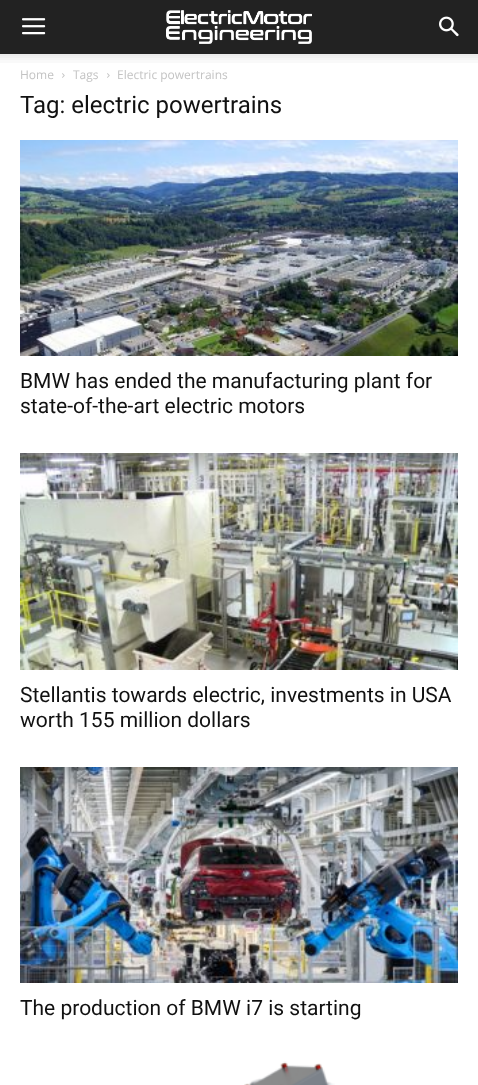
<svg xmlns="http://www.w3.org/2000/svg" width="478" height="1085">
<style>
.a{font:12px Open Sans;fill:#c3c3c3}
.b{font:24px Roboto;fill:#111}
.c{font:21px Roboto;fill:#111}
</style>
<rect width="100%" height="100%" fill="#fff"/>
<path fill="#222" d="M0 0h478v54H0z"/>
<image href="1.png" x="22" y="18" width="24" height="17"/>
<image href="2.png" x="166" y="10" width="146" height="34"/>
<image href="3.png" x="439" y="16" width="20" height="21"/>
<image href="4.png" x="0" y="54" width="478" height="9"/>
<image href="5.png" x="62" y="73" width="3" height="5"/>
<image href="5.png" x="107" y="73" width="3" height="5"/>
<image href="6.png" x="20" y="140" width="438" height="216"/>
<image href="7.png" x="20" y="453" width="438" height="217"/>
<image href="8.png" x="20" y="767" width="438" height="216"/>
<image href="9.png" x="244" y="1061" width="91" height="24"/>
<text class="a" x="20" y="79">Home</text>
<text class="a" x="73" y="79">Tags</text>
<text class="a" x="117" y="79">Electric powertrains</text>
<text class="b" x="20" y="113">Tag: electric powertrains</text>
<text class="c" x="20" y="388">BMW has ended the manufacturing plant for</text>
<text class="c" x="20" y="413">state-of-the-art electric motors</text>
<text class="c" x="20" y="702">Stellantis towards electric, investments in USA</text>
<text class="c" x="20" y="727">worth 155 million dollars</text>
<text class="c" x="20" y="1015">The production of BMW i7 is starting</text>
</svg>
